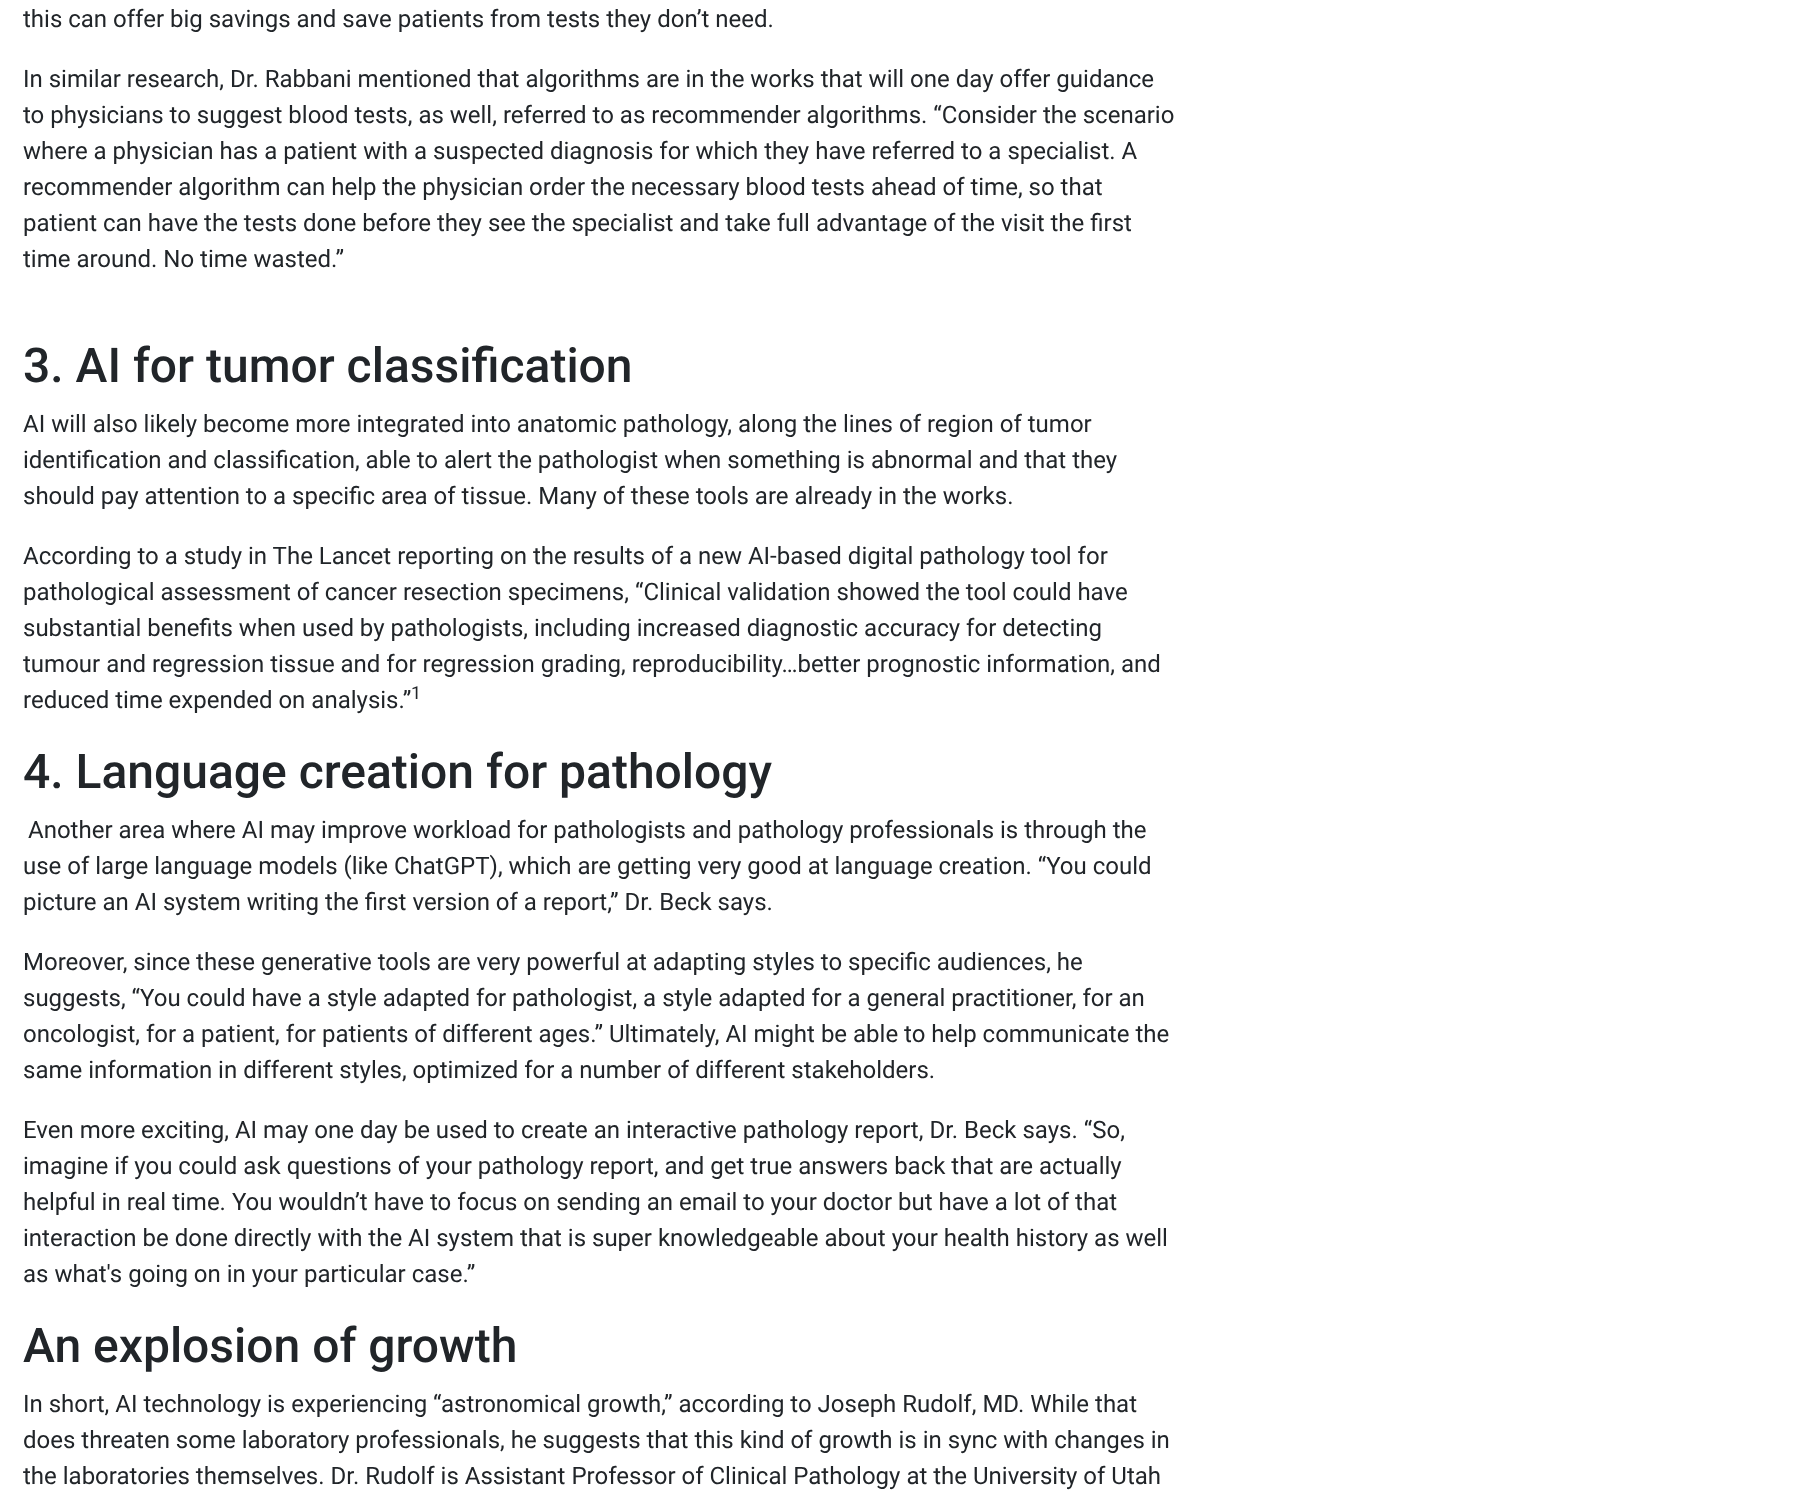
<svg xmlns="http://www.w3.org/2000/svg" width="1799" height="1496">
<style>
.a{font:24px Roboto;fill:#212529}
.b{font:500 48px Roboto;fill:#212529}
.c{font:18px Roboto;fill:#212529}
</style>
<rect width="100%" height="100%" fill="#fff"/>
<text class="a" x="23" y="27">this can offer big savings and save patients from tests they don’t need.</text>
<text class="a" x="23" y="87">In similar research, Dr. Rabbani mentioned that algorithms are in the works that will one day offer guidance</text>
<text class="a" x="23" y="123">to physicians to suggest blood tests, as well, referred to as recommender algorithms. “Consider the scenario</text>
<text class="a" x="23" y="159">where a physician has a patient with a suspected diagnosis for which they have referred to a specialist. A</text>
<text class="a" x="23" y="195">recommender algorithm can help the physician order the necessary blood tests ahead of time, so that</text>
<text class="a" x="23" y="231">patient can have the tests done before they see the specialist and take full advantage of the visit the first</text>
<text class="a" x="23" y="267">time around. No time wasted.”</text>
<text class="b" x="23" y="382">3. AI for tumor classification</text>
<text class="a" x="23" y="432">AI will also likely become more integrated into anatomic pathology, along the lines of region of tumor</text>
<text class="a" x="23" y="468">identification and classification, able to alert the pathologist when something is abnormal and that they</text>
<text class="a" x="23" y="504">should pay attention to a specific area of tissue. Many of these tools are already in the works.</text>
<text class="a" x="23" y="564">According to a study in The Lancet reporting on the results of a new AI-based digital pathology tool for</text>
<text class="a" x="23" y="600">pathological assessment of cancer resection specimens, “Clinical validation showed the tool could have</text>
<text class="a" x="23" y="636">substantial benefits when used by pathologists, including increased diagnostic accuracy for detecting</text>
<text class="a" x="23" y="672">tumour and regression tissue and for regression grading, reproducibility…better prognostic information, and</text>
<text class="a" x="23" y="708">reduced time expended on analysis.”</text>
<text class="c" x="411" y="699">1</text>
<text class="b" x="23" y="788">4. Language creation for pathology</text>
<text class="a" x="28" y="838">Another area where AI may improve workload for pathologists and pathology professionals is through the</text>
<text class="a" x="23" y="874">use of large language models (like ChatGPT), which are getting very good at language creation. “You could</text>
<text class="a" x="23" y="910">picture an AI system writing the first version of a report,” Dr. Beck says.</text>
<text class="a" x="23" y="970">Moreover, since these generative tools are very powerful at adapting styles to specific audiences, he</text>
<text class="a" x="23" y="1006">suggests, “You could have a style adapted for pathologist, a style adapted for a general practitioner, for an</text>
<text class="a" x="23" y="1042">oncologist, for a patient, for patients of different ages.” Ultimately, AI might be able to help communicate the</text>
<text class="a" x="23" y="1078">same information in different styles, optimized for a number of different stakeholders.</text>
<text class="a" x="23" y="1138">Even more exciting, AI may one day be used to create an interactive pathology report, Dr. Beck says. “So,</text>
<text class="a" x="23" y="1174">imagine if you could ask questions of your pathology report, and get true answers back that are actually</text>
<text class="a" x="23" y="1210">helpful in real time. You wouldn’t have to focus on sending an email to your doctor but have a lot of that</text>
<text class="a" x="23" y="1246">interaction be done directly with the AI system that is super knowledgeable about your health history as well</text>
<text class="a" x="23" y="1282">as what's going on in your particular case.”</text>
<text class="b" x="23" y="1362">An explosion of growth</text>
<text class="a" x="23" y="1412">In short, AI technology is experiencing “astronomical growth,” according to Joseph Rudolf, MD. While that</text>
<text class="a" x="23" y="1448">does threaten some laboratory professionals, he suggests that this kind of growth is in sync with changes in</text>
<text class="a" x="23" y="1484">the laboratories themselves. Dr. Rudolf is Assistant Professor of Clinical Pathology at the University of Utah</text>
</svg>
